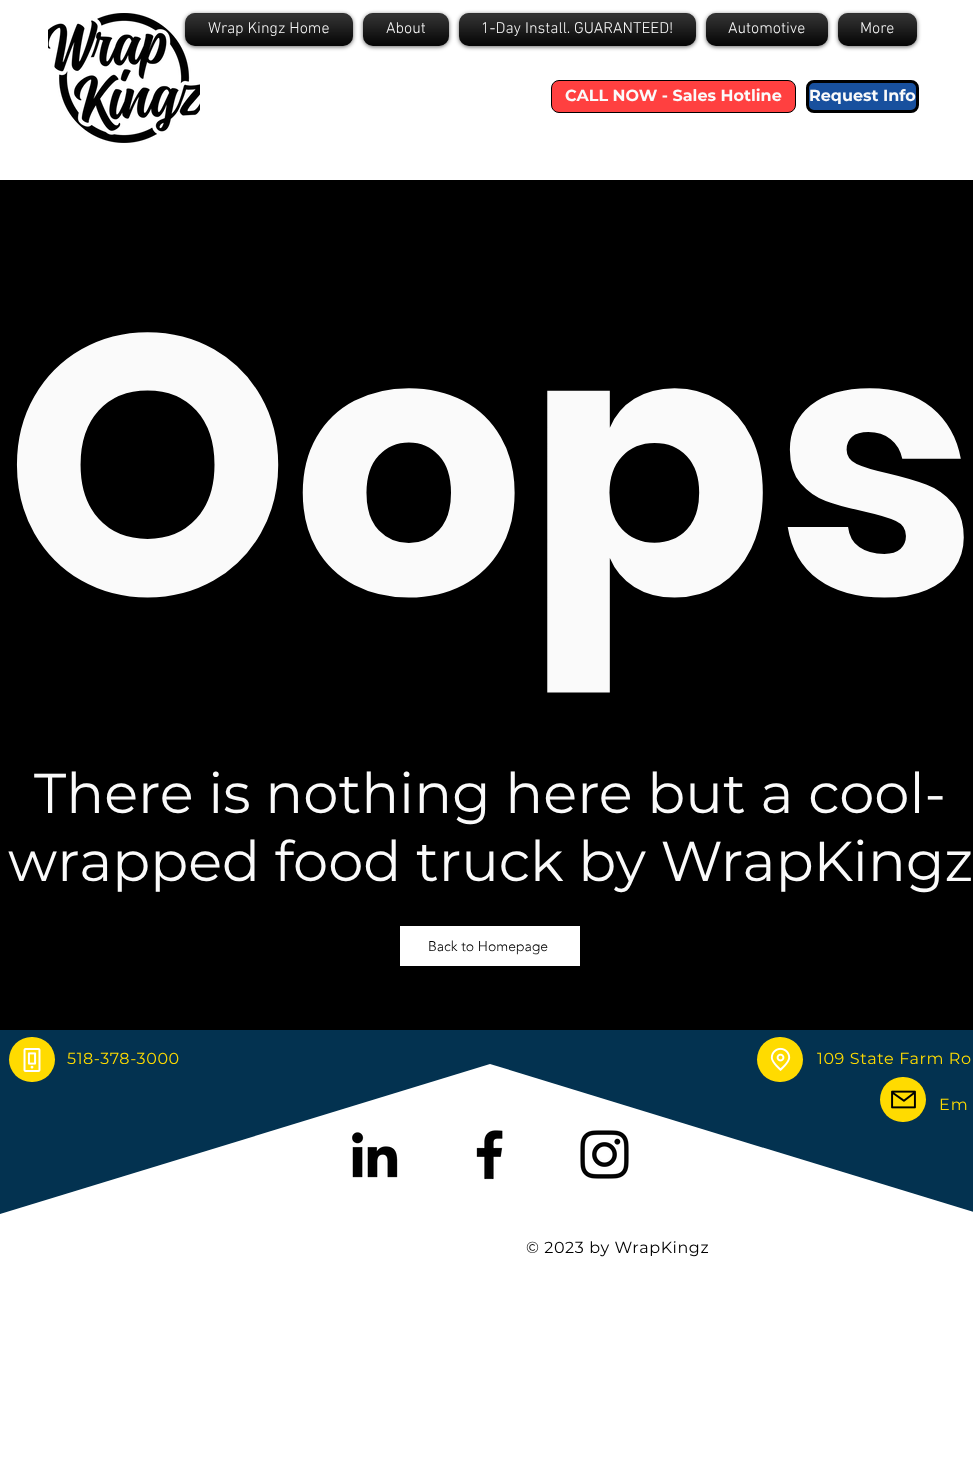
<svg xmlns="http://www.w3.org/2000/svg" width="973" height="1480">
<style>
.a{font:300 16px 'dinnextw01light';fill:#fafafa}
.b{font:bold 16px Montserrat;fill:#fafafa}
.c{font:bold 366px Poppins;fill:#fafafa}
.d{font:56px Montserrat;fill:#fafafa}
.e{font:300 14px 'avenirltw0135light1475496';fill:#000}
.f{font:16px Montserrat;letter-spacing:0.6px;fill:#ffdb00}
.g{font:16px Montserrat;letter-spacing:1px;fill:#ffdb00}
.h{font:16px Montserrat;letter-spacing:0.6px;fill:#000}
</style>
<rect width="100%" height="100%" fill="#fff"/>
<image href="6.png" x="48" y="13" width="152" height="130"/>
<rect fill="#00000099" filter="blur(2px)" x="185" y="14" width="168" height="33" rx="10"/>
<rect fill="#000" x="185" y="13" width="168" height="33" rx="10"/>
<image href="1.png" x="185" y="13" width="168" height="33"/>
<rect fill="#00000099" filter="blur(2px)" x="363" y="14" width="86" height="33" rx="10"/>
<rect fill="#000" x="363" y="13" width="86" height="33" rx="10"/>
<image href="2.png" x="363" y="13" width="86" height="33"/>
<rect fill="#00000099" filter="blur(2px)" x="459" y="14" width="237" height="33" rx="10"/>
<rect fill="#000" x="459" y="13" width="237" height="33" rx="10"/>
<image href="3.png" x="459" y="13" width="237" height="33"/>
<rect fill="#00000099" filter="blur(2px)" x="706" y="14" width="122" height="33" rx="10"/>
<rect fill="#000" x="706" y="13" width="122" height="33" rx="10"/>
<image href="4.png" x="706" y="13" width="122" height="33"/>
<rect fill="#00000099" filter="blur(2px)" x="838" y="14" width="79" height="33" rx="10"/>
<rect fill="#000" x="838" y="13" width="79" height="33" rx="10"/>
<image href="5.png" x="838" y="13" width="79" height="33"/>
<rect fill="#ff4040" stroke="#000" x="551.5" y="80.5" width="244" height="32" rx="7.5"/>
<rect fill="#18509e" stroke="#000" stroke-width="3" x="807.5" y="81.5" width="110" height="30" rx="6.5"/>
<path fill="#000" d="M0 180h973v850H0z"/>
<path fill="#fff" d="M400 926h180v40H400z"/>
<path fill="#033250" d="M0 1030h973v184H0z"/>
<path fill="#fff" d="M0 1214l490-150l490 150z"/>
<rect fill="#ffdb00" x="9" y="1037" width="46" height="45" rx="22.5"/>
<image href="7.png" x="23" y="1048" width="18" height="24"/>
<rect fill="#ffdb00" x="757" y="1037" width="46" height="45" rx="22.5"/>
<image href="8.png" x="770" y="1047" width="21" height="24"/>
<rect fill="#ffdb00" x="880" y="1077" width="46" height="45" rx="22.5"/>
<image href="9.png" x="891" y="1090" width="25" height="19"/>
<image href="10.png" x="352" y="1132" width="46" height="46"/>
<image href="11.png" x="476" y="1130" width="27" height="50"/>
<image href="12.png" x="580" y="1130" width="49" height="49"/>
<text class="a" x="208" y="33">Wrap Kingz Home</text>
<text class="a" x="386" y="33">About</text>
<text class="a" x="481" y="33">1-Day Install. GUARANTEED!</text>
<text class="a" x="728" y="33">Automotive</text>
<text class="a" x="860" y="33">More</text>
<text class="b" x="565" y="101">CALL NOW - Sales Hotline</text>
<text class="b" x="809" y="101">Request Info</text>
<text class="c" x="3" y="595">Oops</text>
<text class="d" x="34" y="813">There is nothing here but a cool-</text>
<text class="d" x="8" y="881">wrapped food truck by WrapKingz</text>
<text class="e" x="428" y="951">Back to Homepage</text>
<text class="f" x="67" y="1064">518-378-3000</text>
<text class="f" x="817" y="1064">109 State Farm Ro</text>
<text class="g" x="939" y="1110">Em</text>
<text class="h" x="526" y="1253">© 2023 by WrapKingz</text>
</svg>
